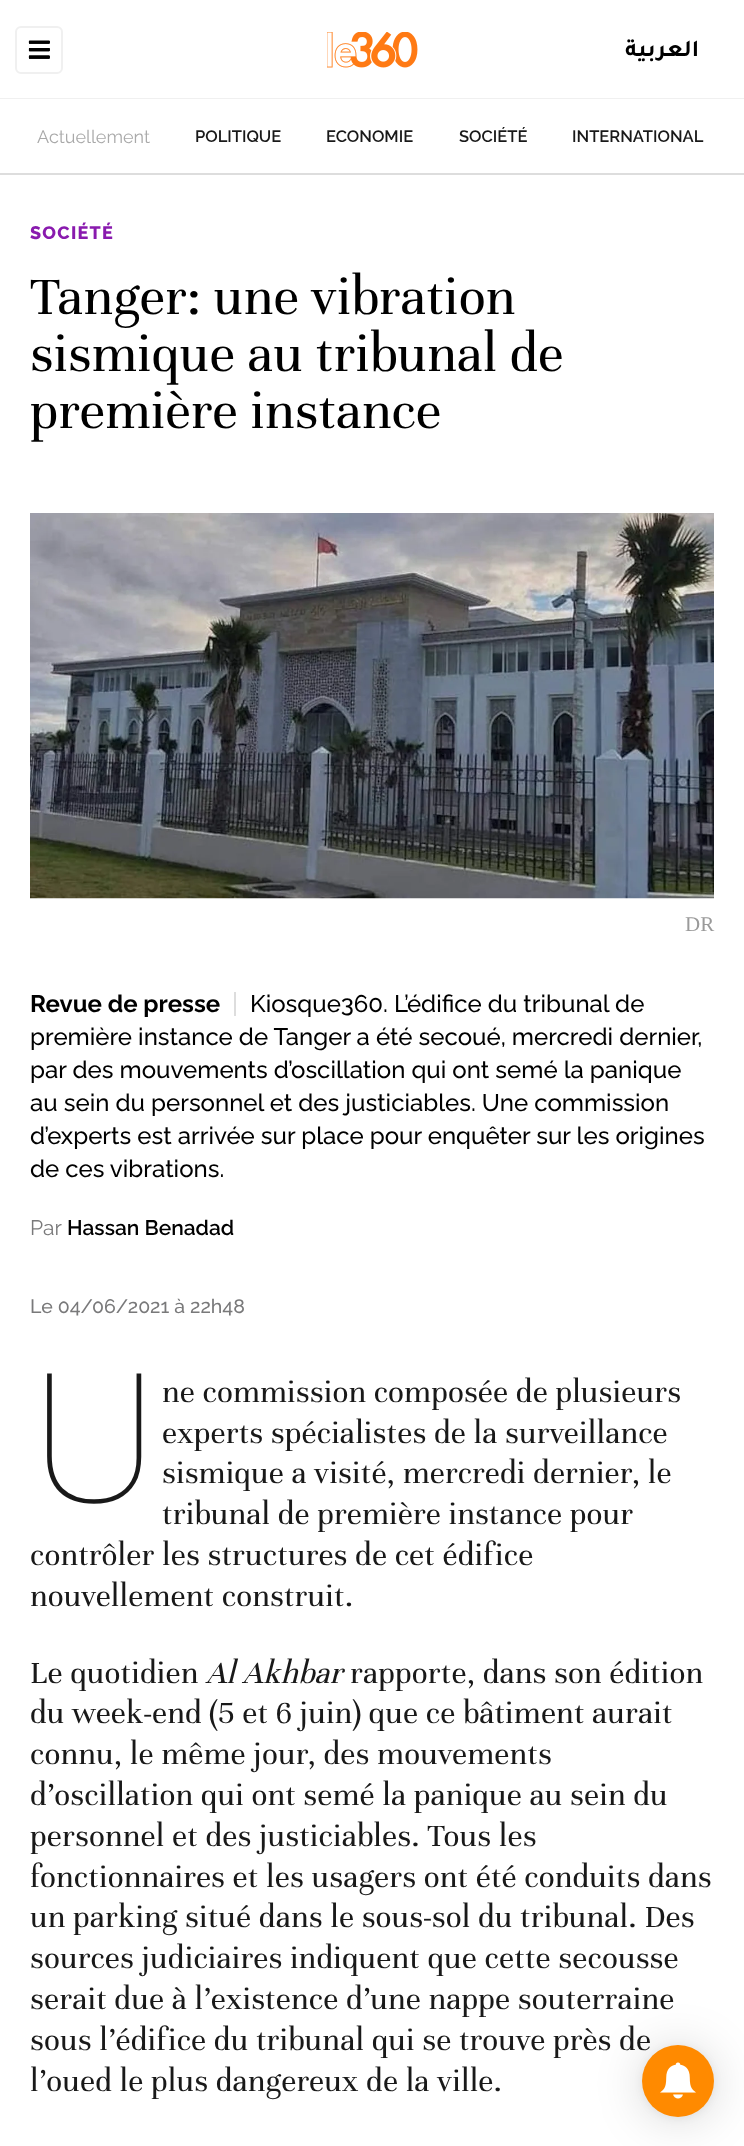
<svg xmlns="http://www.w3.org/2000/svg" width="744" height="2146">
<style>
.a{font:bold 24px Tajawal;direction:rtl;fill:#000}
.b{font:18px Raleway;fill:#a9a9a9}
.c{font:600 16.5px Raleway;fill:#191919}
.d{font:800 18px Raleway;letter-spacing:1.25px;fill:#891aae}
.e{font:57px Unna;fill:#000}
.f{font:21px Liberation Serif;fill:#9a9a9a}
.g{font:bold 24px Raleway;fill:#000}
.h{font:500 24px Raleway;fill:#000}
.i{font:21px Raleway;fill:#79797a}
.j{font:600 21px Raleway;fill:#000}
.k{font:500 19.5px Raleway;fill:#79797a}
.l{font:100 180px Noto Sans;letter-spacing:0.15px;fill:#191919}
.m{font:33.6px Unna;letter-spacing:0.15px;fill:#191919}
.n{font:italic 33.6px Unna;letter-spacing:0.15px;fill:#191919}
</style>
<rect width="100%" height="100%" fill="#fff"/>
<path fill="#f0f0f0" d="M0 98h744v1H0z"/>
<rect fill="none" stroke="#f0f0f0" stroke-width="2" x="16" y="27" width="46" height="46" rx="5"/>
<image href="1.png" x="28" y="40" width="22" height="19"/>
<image href="2.png" x="327" y="32" width="91" height="36"/>
<path fill="#ddd" d="M0 173h744v2H0z"/>
<image href="3.png" x="30" y="513" width="684" height="386"/>
<path fill="#ddd" d="M234 992h2v24H234z"/>
<rect fill="#00000029" filter="blur(24px)" x="642" y="2048" width="72" height="72" rx="36"/>
<rect fill="#0000000f" filter="blur(4.5px)" x="642" y="2046" width="72" height="72" rx="36"/>
<text class="a" x="699" y="56">العربية</text>
<text class="b" x="37" y="143">Actuellement</text>
<text class="c" x="195" y="142">POLITIQUE</text>
<text class="c" x="326" y="142">ECONOMIE</text>
<text class="c" x="459" y="142">SOCIÉTÉ</text>
<text class="c" x="572" y="142">INTERNATIONAL</text>
<text class="d" x="30" y="239">SOCIÉTÉ</text>
<text class="e" x="30" y="314">Tanger: une vibration</text>
<text class="e" x="30" y="371">sismique au tribunal de</text>
<text class="e" x="30" y="428">première instance</text>
<text class="f" x="685" y="931">DR</text>
<text class="g" x="30" y="1012">Revue de presse</text>
<text class="h" x="250" y="1012">Kiosque360. L’édifice du tribunal de</text>
<text class="h" x="30" y="1045">première instance de Tanger a été secoué, mercredi dernier,</text>
<text class="h" x="30" y="1078">par des mouvements d’oscillation qui ont semé la panique</text>
<text class="h" x="30" y="1111">au sein du personnel et des justiciables. Une commission</text>
<text class="h" x="30" y="1144">d’experts est arrivée sur place pour enquêter sur les origines</text>
<text class="h" x="30" y="1177">de ces vibrations.</text>
<text class="i" x="30" y="1235">Par</text>
<text class="j" x="67" y="1235">Hassan Benadad</text>
<text class="k" x="30" y="1313">Le 04/06/2021 à 22h48</text>
<text class="l" x="30" y="1502">U</text>
<text class="m" x="162" y="1402">ne commission composée de plusieurs</text>
<text class="m" x="162" y="1443">experts spécialistes de la surveillance</text>
<text class="m" x="162" y="1483">sismique a visité, mercredi dernier, le</text>
<text class="m" x="162" y="1524">tribunal de première instance pour</text>
<text class="m" x="30" y="1565">contrôler les structures de cet édifice</text>
<text class="m" x="30" y="1606">nouvellement construit.</text>
<text class="m" x="30" y="1683">Le quotidien</text>
<text class="n" x="206" y="1683">Al Akhbar</text>
<text class="m" x="350" y="1683">rapporte, dans son édition</text>
<text class="m" x="30" y="1723">du week-end (5 et 6 juin) que ce bâtiment aurait</text>
<text class="m" x="30" y="1764">connu, le même jour, des mouvements</text>
<text class="m" x="30" y="1805">d’oscillation qui ont semé la panique au sein du</text>
<text class="m" x="30" y="1846">personnel et des justiciables. Tous les</text>
<text class="m" x="30" y="1887">fonctionnaires et les usagers ont été conduits dans</text>
<text class="m" x="30" y="1927">un parking situé dans le sous-sol du tribunal. Des</text>
<text class="m" x="30" y="1968">sources judiciaires indiquent que cette secousse</text>
<text class="m" x="30" y="2009">serait due à l’existence d’une nappe souterraine</text>
<text class="m" x="30" y="2050">sous l’édifice du tribunal qui se trouve près de</text>
<text class="m" x="30" y="2091">l’oued le plus dangereux de la ville.</text>
<circle fill="#ff8a00" cx="678" cy="2081" r="36"/>
<image href="4.png" x="660" y="2062" width="36" height="37"/>
</svg>
